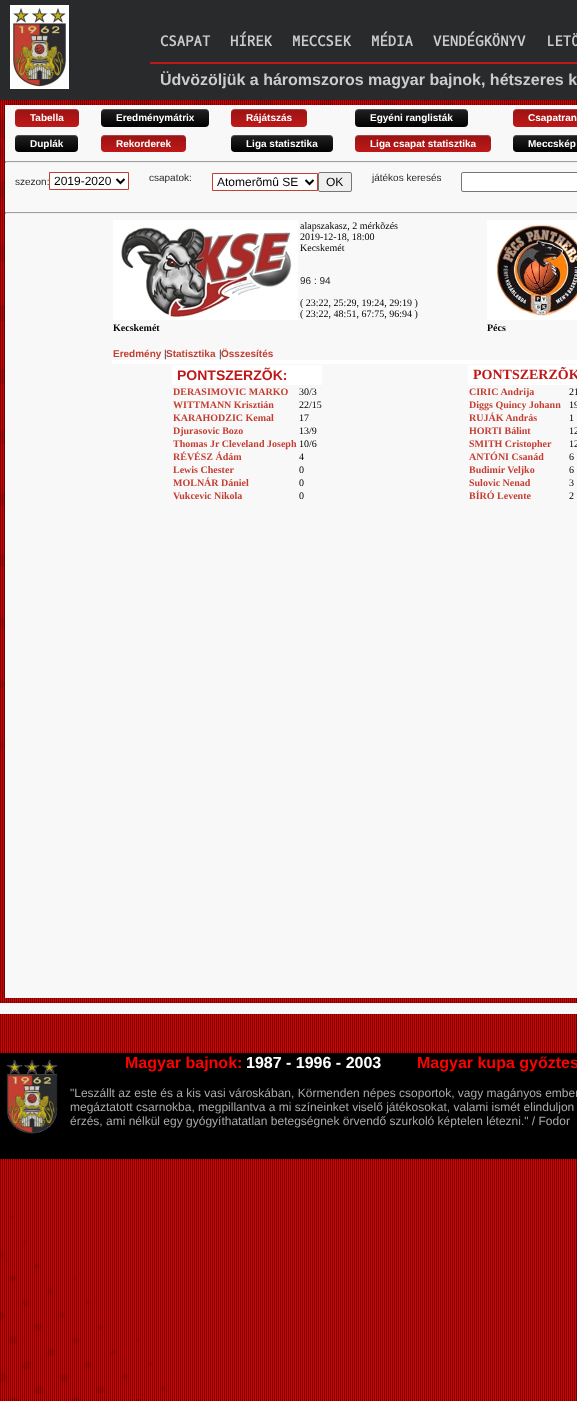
<svg xmlns="http://www.w3.org/2000/svg" width="577" height="1401">
<style>
.a{font:bold 14px Oxygen Mono;fill:#ccc}
.b{font:bold 16px Liberation Sans;fill:#ccc}
.c{font:bold 10px Liberation Sans;fill:#fff}
.d{font:10px Liberation Sans;fill:#292a2c}
.e{font:12px Liberation Sans;fill:#000}
.f{font:10px Liberation Serif;fill:#000}
.g{font:bold 10px Liberation Serif;fill:#000}
.h{font:bold 10px Liberation Sans;fill:#c43e32}
.i{font:bold 14px Liberation Sans;fill:#bf1818}
.j{font:bold 10px Liberation Serif;fill:#c43e32}
.k{font:bold 14px Liberation Serif;fill:#bf1818}
.l{font:bold 16px Liberation Sans;fill:#f00}
.m{font:bold 16px Liberation Sans;fill:#fff}
.n{font:12px Liberation Sans;fill:#aaa}
</style>
<defs>
<linearGradient id="g1" gradientUnits="userSpaceOnUse" x1="47" y1="109" x2="47" y2="127"><stop offset="0" stop-color="#991314"/><stop offset="1" stop-color="#c01818"/></linearGradient>
<linearGradient id="g2" gradientUnits="userSpaceOnUse" x1="155" y1="109" x2="155" y2="127"><stop offset="0" stop-color="#222"/><stop offset="1" stop-color="#000"/></linearGradient>
<linearGradient id="g3" gradientUnits="userSpaceOnUse" x1="269" y1="109" x2="269" y2="127"><stop offset="0" stop-color="#991314"/><stop offset="1" stop-color="#c01818"/></linearGradient>
<linearGradient id="g4" gradientUnits="userSpaceOnUse" x1="412" y1="109" x2="412" y2="127"><stop offset="0" stop-color="#222"/><stop offset="1" stop-color="#000"/></linearGradient>
<linearGradient id="g5" gradientUnits="userSpaceOnUse" x1="569" y1="109" x2="569" y2="127"><stop offset="0" stop-color="#991314"/><stop offset="1" stop-color="#c01818"/></linearGradient>
<linearGradient id="g6" gradientUnits="userSpaceOnUse" x1="47" y1="135" x2="47" y2="152"><stop offset="0" stop-color="#222"/><stop offset="1" stop-color="#000"/></linearGradient>
<linearGradient id="g7" gradientUnits="userSpaceOnUse" x1="144" y1="135" x2="144" y2="152"><stop offset="0" stop-color="#991314"/><stop offset="1" stop-color="#c01818"/></linearGradient>
<linearGradient id="g8" gradientUnits="userSpaceOnUse" x1="282" y1="135" x2="282" y2="152"><stop offset="0" stop-color="#222"/><stop offset="1" stop-color="#000"/></linearGradient>
<linearGradient id="g9" gradientUnits="userSpaceOnUse" x1="423" y1="135" x2="423" y2="152"><stop offset="0" stop-color="#991314"/><stop offset="1" stop-color="#c01818"/></linearGradient>
<linearGradient id="g10" gradientUnits="userSpaceOnUse" x1="558" y1="135" x2="558" y2="152"><stop offset="0" stop-color="#222"/><stop offset="1" stop-color="#000"/></linearGradient>
</defs>
<rect width="100%" height="100%" fill="#fff"/>
<image href="1.png" x="0" y="100" width="577" height="1301"/>
<path fill="#292a2c" d="M0 0h577v100H0z"/>
<path fill="none" stroke="#fff" stroke-width="2" d="M11 6h57v82H11z"/>
<image href="2.png" x="12" y="7" width="55" height="80"/>
<path fill="#c01818" d="M150 62h427v2H150z"/>
<path fill="#f8f8f8" d="M5 105h572v893H5z"/>
<rect fill="url(#g1)" x="15" y="109" width="64" height="18" rx="4"/>
<path fill="#ffffff33" d="M19 110h56c2 0 4 2 4 4c0-7-8-5-13-5h-38c-5 0-13-2-13 5c0-2 2-4 4-4z"/>
<rect fill="url(#g2)" x="101" y="109" width="108" height="18" rx="4"/>
<path fill="#ffffff33" d="M105 110h100c2 0 4 2 4 4c0-9-17-5-21-5h-66c-4 0-21-4-21 5c0-2 2-4 4-4z"/>
<rect fill="url(#g3)" x="231" y="109" width="76" height="18" rx="4"/>
<path fill="#ffffff33" d="M235 110h68c2 0 4 2 4 4c0-8-10-5-15-5h-46c-5 0-15-3-15 5c0-2 2-4 4-4z"/>
<rect fill="url(#g4)" x="355" y="109" width="113" height="18" rx="4"/>
<path fill="#ffffff33" d="M359 110h105c2 0 4 2 4 4c0-10-18-5-22-5h-70c-3 0-21-5-21 5c0-2 2-4 4-4z"/>
<rect fill="url(#g5)" x="513" y="109" width="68" height="18" rx="4"/>
<path fill="#ffffff33" d="M517 110h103c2 0 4 2 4 4c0-10-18-5-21-5h-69c-3 0-21-5-21 5c0-2 2-4 4-4z"/>
<rect fill="url(#g6)" x="15" y="135" width="63" height="17" rx="4"/>
<path fill="#ffffff33" d="M19 136h55c2 0 4 2 4 4c0-7-8-5-13-5h-37c-5 0-13-2-13 5c0-2 2-4 4-4z"/>
<rect fill="url(#g7)" x="101" y="135" width="85" height="17" rx="4"/>
<path fill="#ffffff33" d="M105 136h77c2 0 4 2 4 4c0-8-12-5-17-5h-51c-5 0-17-3-17 5c0-2 2-4 4-4z"/>
<rect fill="url(#g8)" x="231" y="135" width="102" height="17" rx="4"/>
<path fill="#ffffff33" d="M235 136h94c2 0 4 2 4 4c0-9-16-5-20-5h-62c-4 0-20-4-20 5c0-2 2-4 4-4z"/>
<rect fill="url(#g9)" x="355" y="135" width="136" height="17" rx="4"/>
<path fill="#ffffff33" d="M359 136h128c2 0 4 2 4 4v-1c0-2-2-4-4-4h-128c-2 0-4 2-4 4v1c0-2 2-4 4-4z"/>
<rect fill="url(#g10)" x="513" y="135" width="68" height="17" rx="4"/>
<path fill="#ffffff33" d="M517 136h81c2 0 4 2 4 4c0-8-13-5-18-5h-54c-4 0-17-3-17 5c0-2 2-4 4-4z"/>
<path fill="#9f9f9f" d="M5 161h572v1H5z"/>
<path fill="#eee" d="M5 162h572v1H5z"/>
<path fill="#9f9f9f" d="M5 161h1v2H5z"/>
<path fill="#fff" stroke="#c43e32" d="M49.5 172.5h79v17H49.5z"/>
<path fill="none" stroke="#000" stroke-width="2" d="M116.5 179l4 4l4-4"/>
<path fill="#fff" stroke="#c43e32" d="M212.5 173.5h105v17H212.5z"/>
<path fill="none" stroke="#000" stroke-width="2" d="M305.5 180l4 4l4-4"/>
<rect fill="#efefef" stroke="#767676" x="318.5" y="172.5" width="33" height="19" rx="1.5"/>
<rect fill="#fff" stroke="#767676" x="461.5" y="172.5" width="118" height="19" rx="1.5"/>
<path fill="#9f9f9f" d="M5 212h572v1H5z"/>
<path fill="#eee" d="M5 213h572v1H5z"/>
<path fill="#9f9f9f" d="M5 212h1v2H5z"/>
<image href="3.png" x="113" y="220" width="185" height="100"/>
<image href="4.png" x="487" y="220" width="90" height="100"/>
<path fill="#fff" d="M112 360h465v4H112z"/>
<path fill="#fff" d="M172 365h150v20H172z"/>
<path fill="#fff" d="M468 365h109v20H468z"/>
<path fill="#f8f8f8" d="M0 1003h577v11H0z"/>
<path fill="#000" d="M0 1053h577v106H0z"/>
<image href="5.png" x="6" y="1059" width="52" height="75"/>
<text class="a" x="160" y="46">CSAPAT</text>
<text class="a" x="230" y="46">HÍREK</text>
<text class="a" x="292" y="46">MECCSEK</text>
<text class="a" x="371" y="46">MÉDIA</text>
<text class="a" x="433" y="46">VENDÉGKÖNYV</text>
<text class="a" x="546" y="46">LETÖ</text>
<text class="b" x="160" y="85">Üdvözöljük a háromszoros magyar bajnok, hétszeres k</text>
<text class="c" x="30" y="121">Tabella</text>
<text class="c" x="116" y="121">Eredménymátrix</text>
<text class="c" x="246" y="121">Rájátszás</text>
<text class="c" x="370" y="121">Egyéni ranglisták</text>
<text class="c" x="528" y="121">Csapatran</text>
<text class="c" x="30" y="147">Duplák</text>
<text class="c" x="116" y="147">Rekorderek</text>
<text class="c" x="246" y="147">Liga statisztika</text>
<text class="c" x="370" y="147">Liga csapat statisztika</text>
<text class="c" x="528" y="147">Meccskép</text>
<text class="d" x="15" y="185">szezon:</text>
<text class="e" x="54" y="185">2019-2020</text>
<text class="d" x="149" y="181">csapatok:</text>
<text class="e" x="217" y="186">Atomerõmû SE</text>
<text class="e" x="326" y="186">OK</text>
<text class="d" x="372" y="181">játékos keresés</text>
<text class="f" x="300" y="229">alapszakasz, 2 mérkõzés</text>
<text class="f" x="300" y="240">2019-12-18, 18:00</text>
<text class="f" x="300" y="251">Kecskemét</text>
<text class="d" x="300" y="284">96 : 94</text>
<text class="f" x="300" y="306">( 23:22, 25:29, 19:24, 29:19 )</text>
<text class="f" x="300" y="317">( 23:22, 48:51, 67:75, 96:94 )</text>
<text class="g" x="113" y="331">Kecskemét</text>
<text class="g" x="487" y="331">Pécs</text>
<text class="h" x="113" y="357">Eredmény</text>
<text class="d" x="164" y="357">|</text>
<text class="h" x="166" y="357">Statisztika</text>
<text class="d" x="219" y="357">|</text>
<text class="h" x="221" y="357">Összesítés</text>
<text class="i" x="177" y="380">PONTSZERZÕK:</text>
<text class="j" x="173" y="395">DERASIMOVIC MARKO</text>
<text class="f" x="299" y="395">30/3</text>
<text class="j" x="173" y="408">WITTMANN Krisztián</text>
<text class="f" x="299" y="408">22/15</text>
<text class="j" x="173" y="421">KARAHODZIC Kemal</text>
<text class="f" x="299" y="421">17</text>
<text class="j" x="173" y="434">Djurasovic Bozo</text>
<text class="f" x="299" y="434">13/9</text>
<text class="j" x="173" y="447">Thomas Jr Cleveland Joseph</text>
<text class="f" x="299" y="447">10/6</text>
<text class="j" x="173" y="460">RÉVÉSZ Ádám</text>
<text class="f" x="299" y="460">4</text>
<text class="j" x="173" y="473">Lewis Chester</text>
<text class="f" x="299" y="473">0</text>
<text class="j" x="173" y="486">MOLNÁR Dániel</text>
<text class="f" x="299" y="486">0</text>
<text class="j" x="173" y="499">Vukcevic Nikola</text>
<text class="f" x="299" y="499">0</text>
<text class="k" x="473" y="379">PONTSZERZÕK</text>
<text class="j" x="469" y="395">CIRIC Andrija</text>
<text class="f" x="569" y="395">21</text>
<text class="j" x="469" y="408">Diggs Quincy Johann</text>
<text class="f" x="569" y="408">19</text>
<text class="j" x="469" y="421">RUJÁK András</text>
<text class="f" x="569" y="421">1</text>
<text class="j" x="469" y="434">HORTI Bálint</text>
<text class="f" x="569" y="434">12</text>
<text class="j" x="469" y="447">SMITH Cristopher</text>
<text class="f" x="569" y="447">12</text>
<text class="j" x="469" y="460">ANTÓNI Csanád</text>
<text class="f" x="569" y="460">6</text>
<text class="j" x="469" y="473">Budimir Veljko</text>
<text class="f" x="569" y="473">6</text>
<text class="j" x="469" y="486">Sulovic Nenad</text>
<text class="f" x="569" y="486">3</text>
<text class="j" x="469" y="499">BÍRÓ Levente</text>
<text class="f" x="569" y="499">2</text>
<text class="l" x="125" y="1068">Magyar bajnok:</text>
<text class="m" x="246" y="1068">1987 - 1996 - 2003</text>
<text class="l" x="417" y="1068">Magyar kupa győztes</text>
<text class="n" x="70" y="1097">"Leszállt az este és a kis vasi városkában, Körmenden népes csoportok, vagy magányos ember</text>
<text class="n" x="70" y="1111">megáztatott csarnokba, megpillantva a mi színeinket viselő játékosokat, valami ismét elinduljon</text>
<text class="n" x="70" y="1125">érzés, ami nélkül egy gyógyíthatatlan betegségnek örvendő szurkoló képtelen létezni." / Fodor</text>
</svg>
